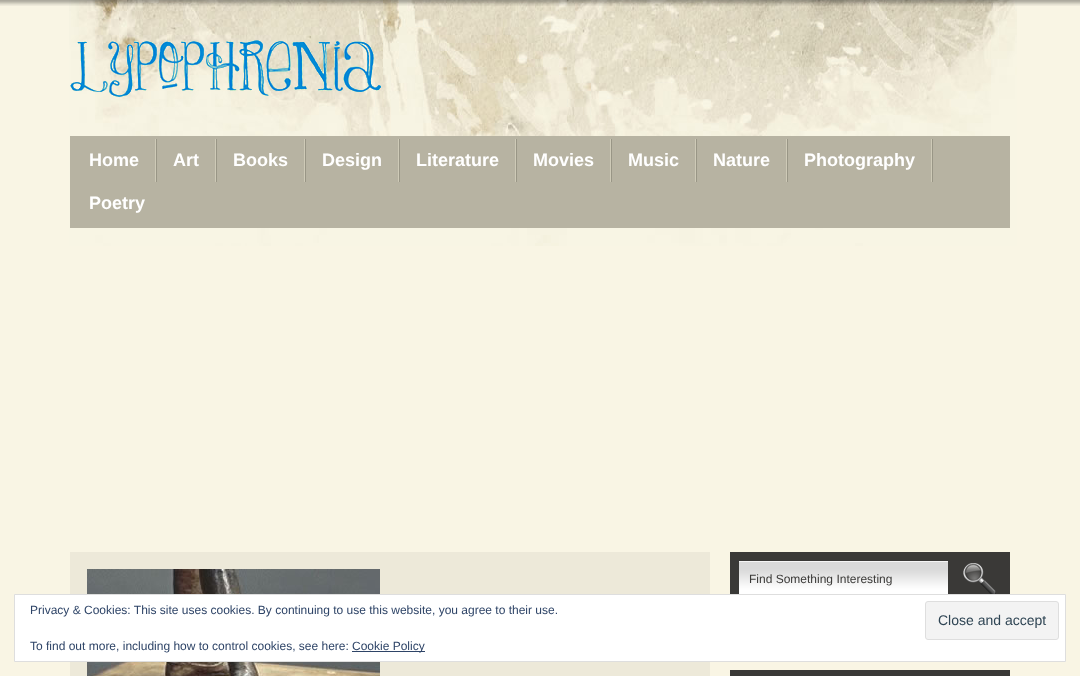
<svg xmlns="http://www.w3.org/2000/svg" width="1080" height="676">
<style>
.a{font:bold 18px Liberation Sans;fill:#fff}
.b{font:12px Liberation Sans;fill:#3a3937}
.c{font:12px Liberation Sans;fill:#2e4467}
.d{font:14px Liberation Sans;fill:#2e4453}
</style>
<rect width="100%" height="100%" fill="#f9f5e4"/>
<image href="1.png" x="69" y="0" width="948" height="246"/>
<image href="2.png" x="0" y="0" width="1080" height="6"/>
<image href="3.png" x="70" y="40" width="311" height="57"/>
<path fill="#b7b3a2" d="M70 136h940v92H70z"/>
<image href="4.png" x="155" y="139" width="2" height="43"/>
<image href="4.png" x="215" y="139" width="2" height="43"/>
<image href="4.png" x="304" y="139" width="2" height="43"/>
<image href="4.png" x="398" y="139" width="2" height="43"/>
<image href="4.png" x="515" y="139" width="2" height="43"/>
<image href="4.png" x="610" y="139" width="2" height="43"/>
<image href="4.png" x="695" y="139" width="2" height="43"/>
<image href="4.png" x="786" y="139" width="2" height="43"/>
<image href="4.png" x="931" y="139" width="2" height="43"/>
<path fill="#ede9d9" d="M70 552h640v124H70z"/>
<image href="5.png" x="87" y="569" width="293" height="107"/>
<path fill="#3a3937" d="M730 552h280v42H730z"/>
<image href="6.png" x="739" y="561" width="209" height="33"/>
<image href="7.png" x="963" y="563" width="33" height="31"/>
<path fill="#3a3937" d="M730 670h280v6H730z"/>
<path fill="#fff" stroke="#dedede" d="M14.5 594.5h1051v67H14.5z"/>
<rect fill="#f3f3f3" stroke="#dedede" x="925.5" y="601.5" width="133" height="38" rx="2.5"/>
<path fill="#2e4467" d="M352 651h73v1H352z"/>
<text class="a" x="89" y="166">Home</text>
<text class="a" x="173" y="166">Art</text>
<text class="a" x="233" y="166">Books</text>
<text class="a" x="322" y="166">Design</text>
<text class="a" x="416" y="166">Literature</text>
<text class="a" x="533" y="166">Movies</text>
<text class="a" x="628" y="166">Music</text>
<text class="a" x="713" y="166">Nature</text>
<text class="a" x="804" y="166">Photography</text>
<text class="a" x="89" y="209">Poetry</text>
<text class="b" x="749" y="583">Find Something Interesting</text>
<text class="c" x="30" y="614">Privacy &amp; Cookies: This site uses cookies. By continuing to use this website, you agree to their use.</text>
<text class="d" x="938" y="625">Close and accept</text>
<text class="c" x="30" y="650">To find out more, including how to control cookies, see here:</text>
<text class="c" x="352" y="650">Cookie Policy</text>
</svg>
